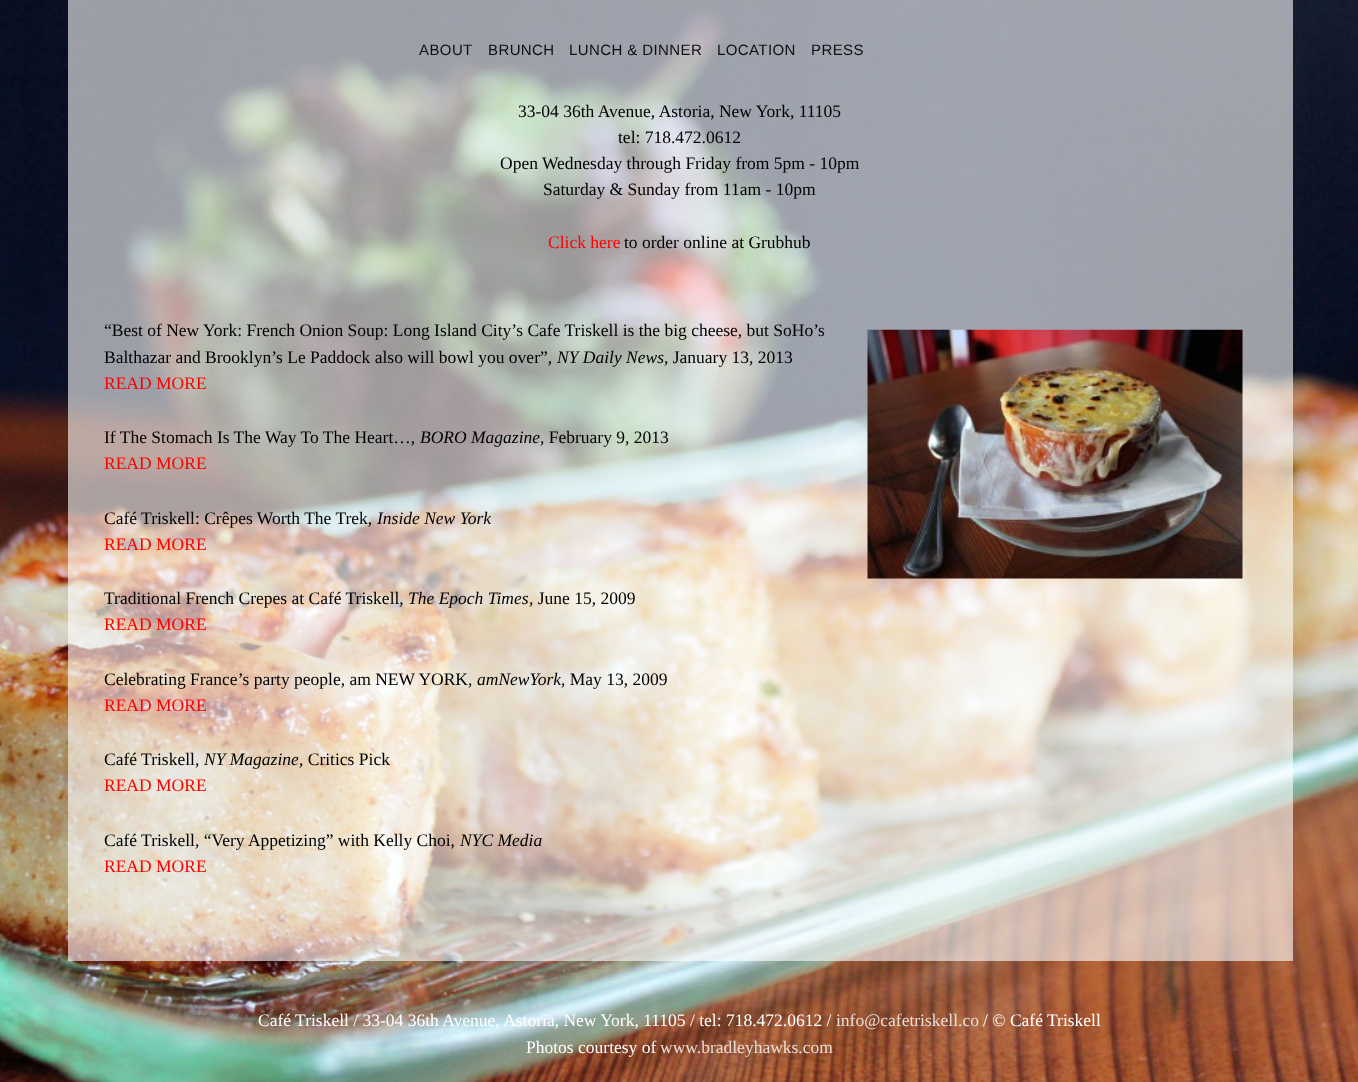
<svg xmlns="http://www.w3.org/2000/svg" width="1358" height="1082">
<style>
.a{font:15px Liberation Sans;letter-spacing:0.4px;fill:#101011}
.b{font:17.5px Liberation Serif;fill:#000}
.c{font:17.5px Liberation Serif;fill:#f00}
.d{font:italic 17.5px Liberation Serif;fill:#000}
.e{font:17.5px Liberation Serif;fill:#fff}
.f{font:17.5px Liberation Serif;fill:#e9ddd6}
</style>
<rect width="100%" height="100%" fill="#fff"/>
<image href="1.png" x="0" y="0" width="1358" height="1082"/>
<path fill="#ffffff99" d="M68 0h1225v961H68z"/>
<image href="2.png" x="867" y="329" width="376" height="250"/>
<text class="a" x="419" y="55">ABOUT</text>
<text class="a" x="488" y="55">BRUNCH</text>
<text class="a" x="569" y="55">LUNCH &amp; DINNER</text>
<text class="a" x="717" y="55">LOCATION</text>
<text class="a" x="811" y="55">PRESS</text>
<text class="b" x="518" y="117">33-04 36th Avenue, Astoria, New York, 11105</text>
<text class="b" x="618" y="143">tel: 718.472.0612</text>
<text class="b" x="500" y="169">Open Wednesday through Friday from 5pm - 10pm</text>
<text class="b" x="543" y="195">Saturday &amp; Sunday from 11am - 10pm</text>
<text class="c" x="548" y="248">Click here</text>
<text class="b" x="624" y="248">to order online at Grubhub</text>
<text class="b" x="104" y="336">“Best of New York: French Onion Soup: Long Island City’s Cafe Triskell is the big cheese, but SoHo’s</text>
<text class="b" x="104" y="363">Balthazar and Brooklyn’s Le Paddock also will bowl you over”,</text>
<text class="d" x="557" y="363">NY Daily News</text>
<text class="b" x="664" y="363">, January 13, 2013</text>
<text class="c" x="104" y="389">READ MORE</text>
<text class="b" x="104" y="443">If The Stomach Is The Way To The Heart…,</text>
<text class="d" x="420" y="443">BORO Magazine</text>
<text class="b" x="540" y="443">, February 9, 2013</text>
<text class="c" x="104" y="469">READ MORE</text>
<text class="b" x="104" y="524">Café Triskell: Crêpes Worth The Trek,</text>
<text class="d" x="377" y="524">Inside New York</text>
<text class="c" x="104" y="550">READ MORE</text>
<text class="b" x="104" y="604">Traditional French Crepes at Café Triskell,</text>
<text class="d" x="408" y="604">The Epoch Times</text>
<text class="b" x="529" y="604">, June 15, 2009</text>
<text class="c" x="104" y="630">READ MORE</text>
<text class="b" x="104" y="685">Celebrating France’s party people, am NEW YORK,</text>
<text class="d" x="477" y="685">amNewYork</text>
<text class="b" x="561" y="685">, May 13, 2009</text>
<text class="c" x="104" y="711">READ MORE</text>
<text class="b" x="104" y="765">Café Triskell,</text>
<text class="d" x="204" y="765">NY Magazine</text>
<text class="b" x="299" y="765">, Critics Pick</text>
<text class="c" x="104" y="791">READ MORE</text>
<text class="b" x="104" y="846">Café Triskell, “Very Appetizing” with Kelly Choi,</text>
<text class="d" x="460" y="846">NYC Media</text>
<text class="c" x="104" y="872">READ MORE</text>
<text class="e" x="258" y="1026">Café Triskell / 33-04 36th Avenue, Astoria, New York, 11105 / tel: 718.472.0612 /</text>
<text class="f" x="836" y="1026">info@cafetriskell.co</text>
<text class="e" x="983" y="1026">/ © Café Triskell</text>
<text class="e" x="526" y="1053">Photos courtesy of</text>
<text class="f" x="660" y="1053">www.bradleyhawks.com</text>
</svg>
